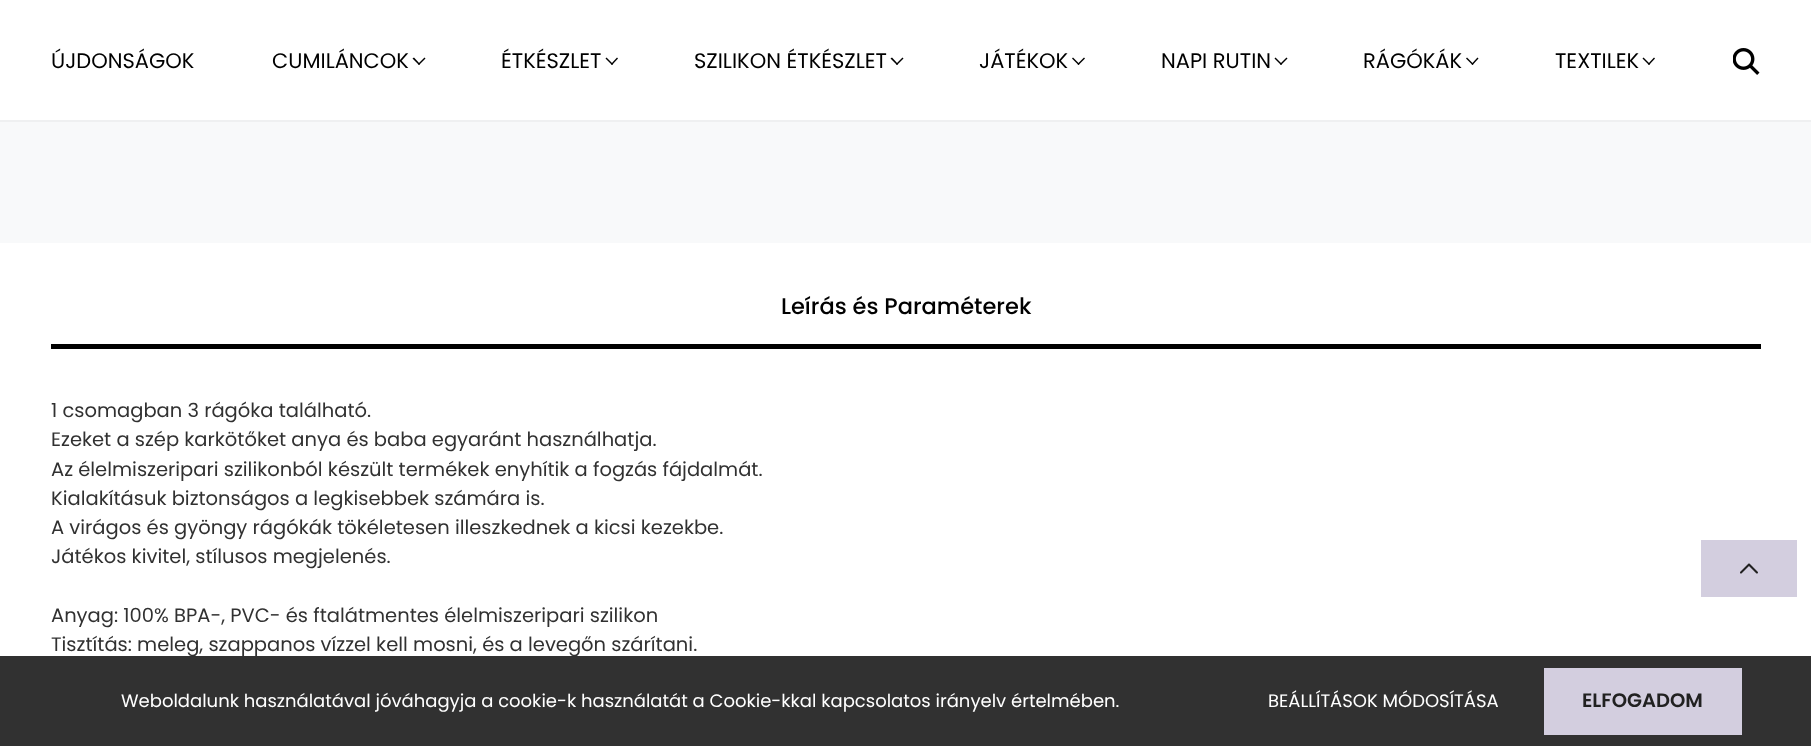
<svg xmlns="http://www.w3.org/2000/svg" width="1811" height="746">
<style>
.a{font:21px Poppins;fill:#000}
.b{font:500 22.5px Poppins;fill:#000}
.c{font:19.5px Poppins;fill:#313131}
.d{font:18px Poppins;fill:#fff}
.e{font:600 19.5px Poppins;fill:#212121}
</style>
<rect width="100%" height="100%" fill="#fff"/>
<path fill="#eff0f1" d="M0 120h1811v2H0z"/>
<path fill="#000" d="M424.5 57.5l1 1l-6.5 6.5l-1-1z"/>
<path fill="#000" d="M414 57.5l6 6.5l-1 1l-6.5-6.5z"/>
<path fill="#000" d="M617 57.5l1 1l-6 6.5l-1-1z"/>
<path fill="#000" d="M606.5 57.5l6.5 6.5l-1 1l-6.5-6.5z"/>
<path fill="#000" d="M902.5 57.5l1 1l-6.5 6.5l-1-1z"/>
<path fill="#000" d="M892 57.5l6 6.5l-1 1l-6.5-6.5z"/>
<path fill="#000" d="M1084 57.5l1 1l-6.5 6.5l-1-1z"/>
<path fill="#000" d="M1073 57.5l6.5 6.5l-1 1l-6.5-6.5z"/>
<path fill="#000" d="M1286.5 57.5l1 1l-6.5 6.5l-1-1z"/>
<path fill="#000" d="M1275.5 57.5l6.5 6.5l-1 1l-6.5-6.5z"/>
<path fill="#000" d="M1477.5 57.5l1 1l-6 6.5l-1-1z"/>
<path fill="#000" d="M1467 57.5l6.5 6.5l-1 1l-6.5-6.5z"/>
<path fill="#000" d="M1654 57.5l1 1l-6 6.5l-1-1z"/>
<path fill="#000" d="M1643.5 57.5l6.5 6.5l-1 1l-6.5-6.5z"/>
<image href="1.png" x="1733" y="48" width="27" height="27"/>
<path fill="#f8f9fa" d="M0 122h1811v121H0z"/>
<path fill="#000" d="M51 344h1710v5H51z"/>
<path fill="#d3cedf" d="M1701 540h96v57H1701z"/>
<image href="2.png" x="1740" y="563" width="18" height="11"/>
<path fill="#313131" d="M0 656h1811v90H0z"/>
<path fill="#d3cedf" d="M1544 668h198v67H1544z"/>
<text class="a" x="51" y="68">ÚJDONSÁGOK</text>
<text class="a" x="272" y="68">CUMILÁNCOK</text>
<text class="a" x="501" y="68">ÉTKÉSZLET</text>
<text class="a" x="694" y="68">SZILIKON ÉTKÉSZLET</text>
<text class="a" x="979" y="68">JÁTÉKOK</text>
<text class="a" x="1161" y="68">NAPI RUTIN</text>
<text class="a" x="1363" y="68">RÁGÓKÁK</text>
<text class="a" x="1555" y="68">TEXTILEK</text>
<text class="b" x="781" y="314">Leírás és Paraméterek</text>
<text class="c" x="51" y="417">1 csomagban 3 rágóka található.</text>
<text class="c" x="51" y="446">Ezeket a szép karkötőket anya és baba egyaránt használhatja.</text>
<text class="c" x="51" y="476">Az élelmiszeripari szilikonból készült termékek enyhítik a fogzás fájdalmát.</text>
<text class="c" x="51" y="505">Kialakításuk biztonságos a legkisebbek számára is.</text>
<text class="c" x="51" y="534">A virágos és gyöngy rágókák tökéletesen illeszkednek a kicsi kezekbe.</text>
<text class="c" x="51" y="563">Játékos kivitel, stílusos megjelenés.</text>
<text class="c" x="51" y="622">Anyag: 100% BPA-, PVC- és ftalátmentes élelmiszeripari szilikon</text>
<text class="c" x="51" y="651">Tisztítás: meleg, szappanos vízzel kell mosni, és a levegőn szárítani.</text>
<text class="d" x="121" y="707">Weboldalunk használatával jóváhagyja a cookie-k használatát a Cookie-kkal kapcsolatos irányelv értelmében.</text>
<text class="d" x="1268" y="707">BEÁLLÍTÁSOK MÓDOSÍTÁSA</text>
<text class="e" x="1582" y="707">ELFOGADOM</text>
</svg>
